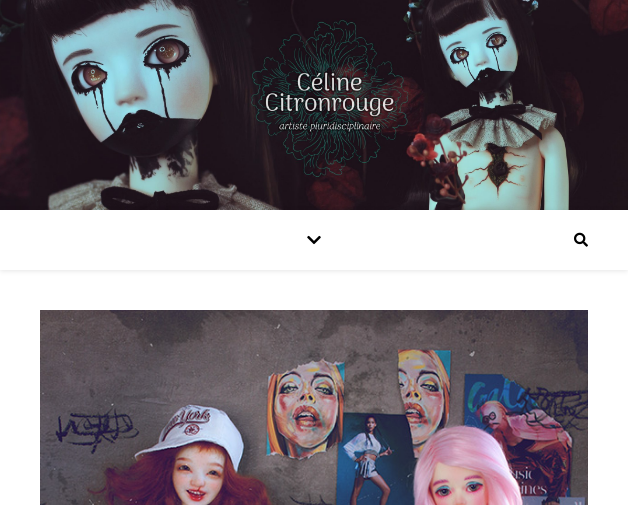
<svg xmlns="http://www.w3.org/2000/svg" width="628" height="505">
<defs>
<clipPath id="clip1"><path d="M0 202h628v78h-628zm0 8h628v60h-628z" clip-rule="evenodd"/></clipPath>
</defs>
<rect width="100%" height="100%" fill="#fff"/>
<image href="1.png" x="0" y="0" width="628" height="210"/>
<g clip-path="url(#clip1)">
<path fill="#0000001a" filter="blur(2.5px)" d="M0 211h628v60H0z"/>
</g>
<image href="2.png" x="307" y="235" width="14" height="10"/>
<image href="3.png" x="574" y="232" width="14" height="15"/>
<image href="4.png" x="40" y="310" width="548" height="195"/>
</svg>
